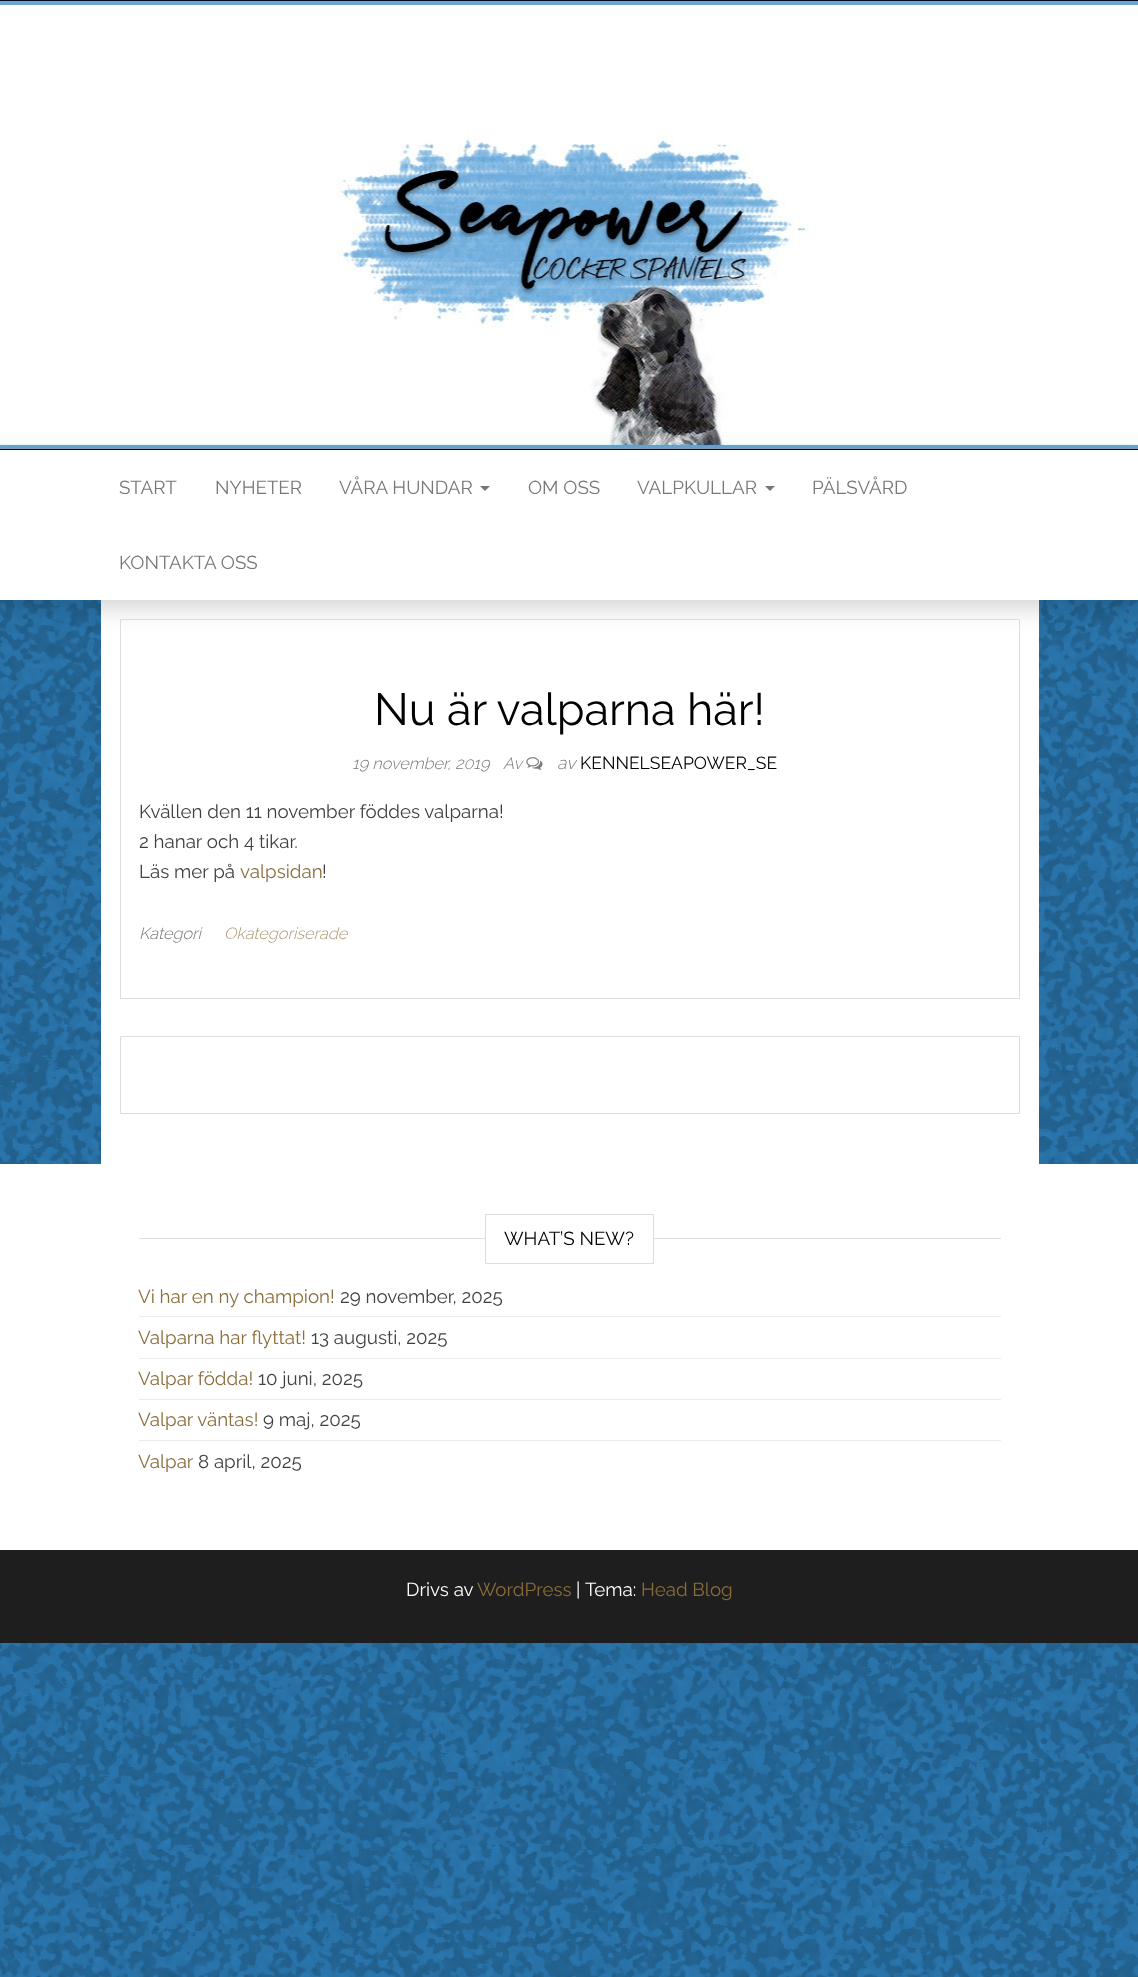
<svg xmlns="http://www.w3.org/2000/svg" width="1138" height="1977">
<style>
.a{font:18.75px Raleway;fill:#777}
.b{font:45px Raleway;fill:#000}
.c{font:italic 300 16.25px Raleway;fill:#777}
.d{font:italic 300 17.5px Raleway;fill:#777}
.e{font:17.5px Raleway;fill:#000}
.f{font:18.75px Raleway;fill:#404040}
.g{font:18.75px Raleway;fill:#8a6d3b}
.h{font:italic 300 16.25px Raleway;fill:#ac9875}
.i{font:18.75px Raleway;fill:#000}
.j{font:18.75px Raleway;fill:#fff}
</style>
<rect width="100%" height="100%" fill="#fff"/>
<image href="1.png" x="0" y="600" width="1138" height="1377"/>
<image href="2.png" x="0" y="0" width="1138" height="450"/>
<path fill="#fff" d="M101 600h938v564H101z"/>
<path fill="#0000002b" filter="blur(12px)" d="M1 460h1137v148H1z"/>
<path fill="#fff" d="M0 450h1138v150H0z"/>
<path fill="#777" d="M480 486h10l-5 5z"/>
<path fill="#777" d="M765 486h10l-5 5z"/>
<path fill="none" stroke="#ddd" d="M120.5 619.5h899v379H120.5z"/>
<image href="3.png" x="526" y="757" width="17" height="13"/>
<path fill="none" stroke="#ddd" d="M120.5 1036.5h899v77H120.5z"/>
<path fill="#fff" d="M0 1164h1138v386H0z"/>
<path fill="#ddd" d="M139 1238h862v1H139z"/>
<path fill="#fff" d="M486 1238h167v1H486z"/>
<path fill="none" stroke="#ddd" d="M485.5 1214.5h168v49H485.5z"/>
<path fill="#ebebeb" d="M139 1316h862v1H139z"/>
<path fill="#ebebeb" d="M139 1358h862v1H139z"/>
<path fill="#ebebeb" d="M139 1399h862v1H139z"/>
<path fill="#ebebeb" d="M139 1440h862v1H139z"/>
<path fill="#1e1e1e" d="M0 1550h1138v93H0z"/>
<text class="a" x="119" y="494">START</text>
<text class="a" x="215" y="494">NYHETER</text>
<text class="a" x="339" y="494">VÅRA HUNDAR</text>
<text class="a" x="528" y="494">OM OSS</text>
<text class="a" x="637" y="494">VALPKULLAR</text>
<text class="a" x="812" y="494">PÄLSVÅRD</text>
<text class="a" x="119" y="569">KONTAKTA OSS</text>
<text class="b" x="374" y="725">Nu är valparna här!</text>
<text class="c" x="352" y="769">19 november, 2019</text>
<text class="c" x="503" y="769">Av</text>
<text class="d" x="557" y="769">av</text>
<text class="e" x="580" y="769">KENNELSEAPOWER_SE</text>
<text class="f" x="139" y="818">Kvällen den 11 november föddes valparna!</text>
<text class="f" x="139" y="848">2 hanar och 4 tikar.</text>
<text class="f" x="139" y="878">Läs mer på</text>
<text class="g" x="240" y="878">valpsidan</text>
<text class="f" x="322" y="878">!</text>
<text class="c" x="139" y="939">Kategori</text>
<text class="h" x="224" y="939">Okategoriserade</text>
<text class="i" x="504" y="1245">WHAT’S NEW?</text>
<text class="g" x="138" y="1303">Vi har en ny champion!</text>
<text class="f" x="340" y="1303">29 november, 2025</text>
<text class="g" x="138" y="1344">Valparna har flyttat!</text>
<text class="f" x="311" y="1344">13 augusti, 2025</text>
<text class="g" x="138" y="1385">Valpar födda!</text>
<text class="f" x="258" y="1385">10 juni, 2025</text>
<text class="g" x="138" y="1426">Valpar väntas!</text>
<text class="f" x="263" y="1426">9 maj, 2025</text>
<text class="g" x="138" y="1468">Valpar</text>
<text class="f" x="198" y="1468">8 april, 2025</text>
<text class="j" x="406" y="1596">Drivs av</text>
<text class="g" x="477" y="1596">WordPress</text>
<text class="j" x="576" y="1596">|</text>
<text class="j" x="585" y="1596">Tema:</text>
<text class="g" x="641" y="1596">Head Blog</text>
</svg>
